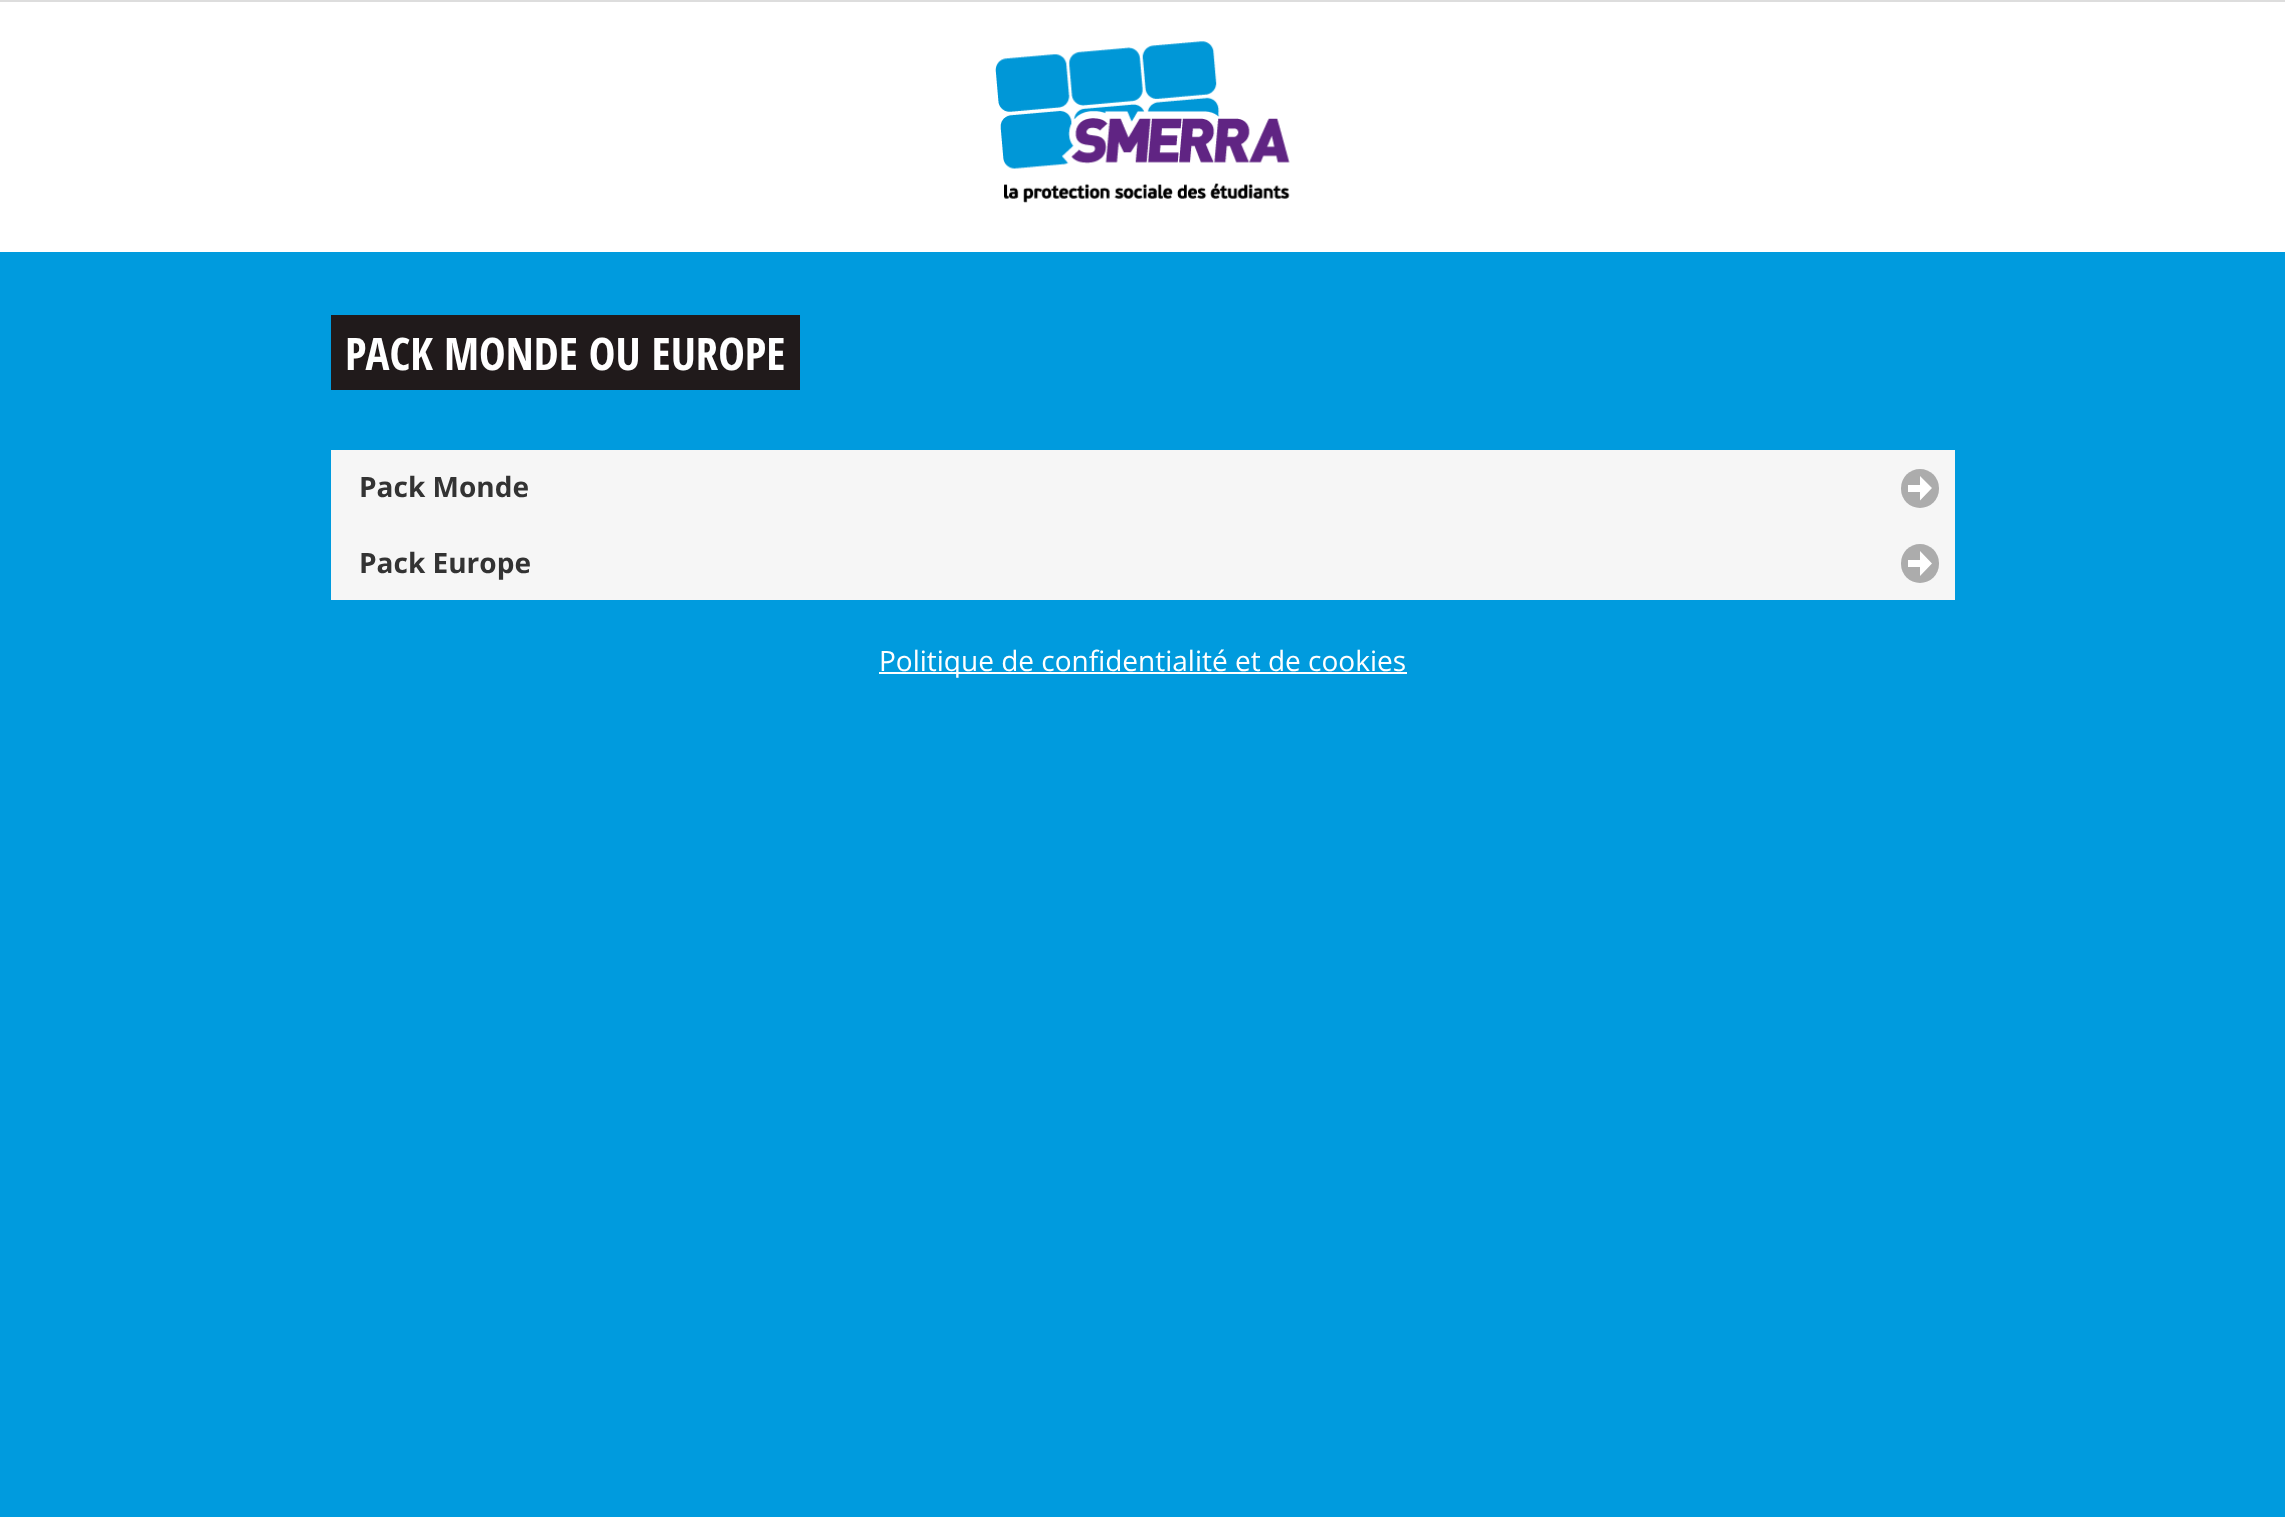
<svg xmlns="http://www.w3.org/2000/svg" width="2285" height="1517">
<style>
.a{font:bold 44.75px Open Sans Condensed;fill:#fff}
.b{font:bold 28px Open Sans;fill:#333}
.c{font:28px Open Sans;fill:#fff}
</style>
<defs>
<clipPath id="clip1"><path d="M1908 476h24v25H1908z"/></clipPath>
<clipPath id="clip2"><path d="M1908 551h24v25H1908z"/></clipPath>
</defs>
<rect width="100%" height="100%" fill="#009bde"/>
<path fill="#fff" d="M0 2h2285v250H0z"/>
<path fill="#ddd" d="M0 0h2285v2H0z"/>
<image href="1.png" x="995" y="41" width="295" height="162"/>
<path fill="#201a1b" d="M331 315h469v75H331z"/>
<path fill="#f6f6f6" d="M331 450h1624v150H331z"/>
<rect fill="#acacac" x="1901" y="469" width="38" height="39" rx="19"/>
<g clip-path="url(#clip1)">
<path fill="#fff" d="M1932 488l-12-12v9h-12.5v7h12.5v8.5z"/>
</g>
<rect fill="#acacac" x="1901" y="544" width="38" height="39" rx="19"/>
<g clip-path="url(#clip2)">
<path fill="#fff" d="M1932 563.5l-12-12.5v9h-12.5v7h12.5v9z"/>
</g>
<path fill="#fff" d="M879 672h528v2H879z"/>
<text class="a" x="345" y="370">PACK MONDE OU EUROPE</text>
<text class="b" x="359" y="497">Pack Monde</text>
<text class="b" x="359" y="573">Pack Europe</text>
<text class="c" x="879" y="671">Politique de confidentialité et de cookies</text>
</svg>
